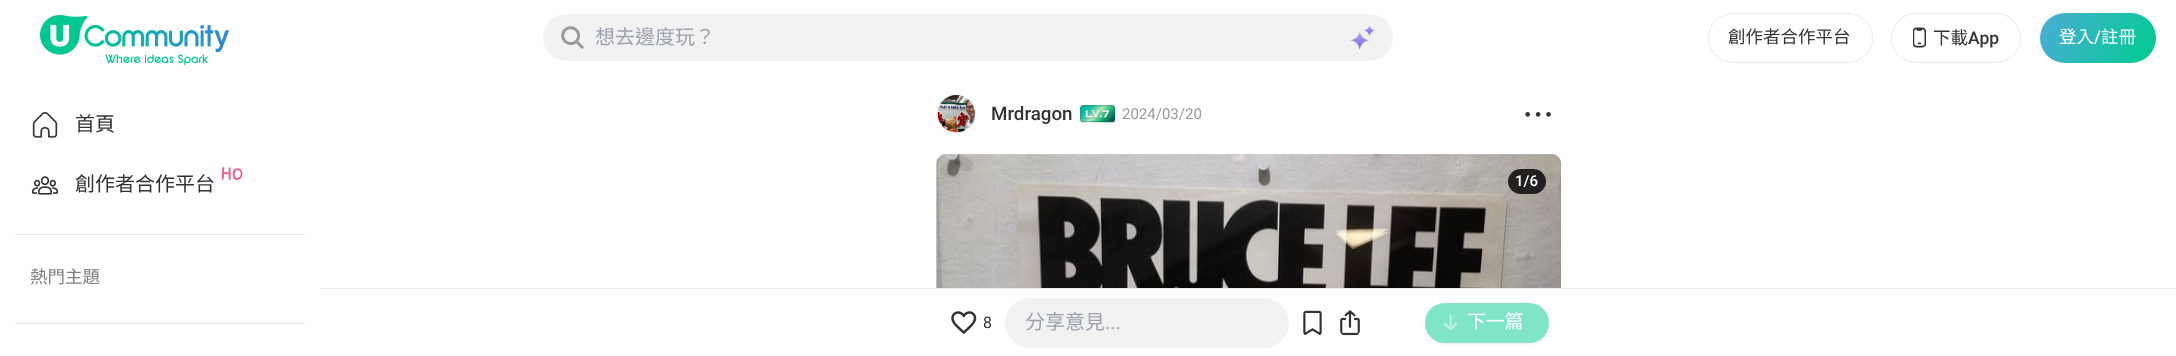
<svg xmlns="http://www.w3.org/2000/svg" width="2176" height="356">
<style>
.a{font:20px Noto Sans CJK HK;fill:#9ca3af}
.b{font:17.5px Noto Sans CJK HK;fill:#333}
.c{font:500 17.5px Roboto;fill:#333}
.d{font:17.5px Noto Sans CJK HK;fill:#fff}
.e{font:500 17.5px Roboto;fill:#fff}
.f{font:20px Noto Sans CJK HK;fill:#333}
.g{font:17.5px Noto Sans CJK HK;fill:#808080}
.h{font:500 18.75px Roboto;fill:#333}
.i{font:15px Roboto;fill:#999}
.j{font:500 15px Roboto;fill:#fff}
.k{font:16px Roboto;fill:#333}
.l{font:20px Roboto;fill:#9ca3af}
.m{font:18.75px Noto Sans CJK HK;fill:#fff}
</style>
<defs>
<linearGradient id="g1" gradientUnits="userSpaceOnUse" x1="2041" y1="11" x2="2155" y2="64"><stop offset="0" stop-color="#4badd6"/><stop offset="1" stop-color="#00cc8f"/></linearGradient>
</defs>
<rect width="100%" height="100%" fill="#fff"/>
<image href="1.png" x="40" y="15" width="189" height="50"/>
<rect fill="#f2f2f2" x="543" y="14" width="850" height="47" rx="23.5"/>
<image href="2.png" x="561" y="26" width="23" height="23"/>
<image href="3.png" x="1350" y="25" width="25" height="25"/>
<rect fill="none" stroke="#ebebeb" x="1708.5" y="13.5" width="164" height="49" rx="24.5"/>
<rect fill="none" stroke="#ebebeb" x="1891.5" y="13.5" width="129" height="49" rx="24.5"/>
<image href="4.png" x="1913" y="27" width="13" height="21"/>
<rect fill="url(#g1)" x="2040" y="13" width="116" height="50" rx="25"/>
<image href="5.png" x="32" y="112" width="26" height="26"/>
<image href="6.png" x="31" y="176" width="28" height="19"/>
<image href="7.png" x="221" y="167" width="22" height="14"/>
<path fill="#e2e8f0" d="M15 234h290v1H15z"/>
<path fill="#e2e8f0" d="M15 323h290v1H15z"/>
<circle fill="none" stroke="#f2f2f2" cx="956" cy="114" r="19.5"/>
<image href="8.png" x="937" y="95" width="38" height="38"/>
<image href="9.png" x="1080" y="105" width="35" height="18"/>
<image href="10.png" x="1525" y="112" width="26" height="5"/>
<rect fill="#e7e8ea" x="936" y="154" width="625" height="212" rx="10"/>
<image href="11.png" x="936" y="154" width="626" height="134"/>
<rect fill="#000000cc" x="1508" y="169" width="38" height="25" rx="12.5"/>
<path fill="#fff" d="M936 289h625v67H936z"/>
<path fill="#e7e7e7" d="M320 288h1856v1H320z"/>
<image href="12.png" x="951" y="311" width="26" height="24"/>
<rect fill="#f2f2f2" x="1005" y="298" width="284" height="50" rx="25"/>
<image href="13.png" x="1303" y="310" width="19" height="26"/>
<image href="14.png" x="1340" y="310" width="20" height="26"/>
<rect fill="#8080801a" filter="blur(1px)" x="1426" y="305" width="122" height="38" rx="19"/>
<rect fill="#8080801a" filter="blur(2px)" x="1425" y="304" width="124" height="40" rx="20"/>
<rect fill="#80e4c8" x="1425" y="303" width="124" height="40" rx="20"/>
<image href="15.png" x="1444" y="315" width="14" height="15"/>
<text class="a" x="595" y="44">想去邊度玩？</text>
<text class="b" x="1728" y="43">創作者合作平台</text>
<text class="b" x="1933" y="44">下載</text>
<text class="c" x="1968" y="44">App</text>
<text class="d" x="2059" y="43">登入</text>
<text class="e" x="2094" y="43">/</text>
<text class="d" x="2101" y="43">註冊</text>
<text class="f" x="75" y="131">首頁</text>
<text class="f" x="75" y="191">創作者合作平台</text>
<text class="g" x="30" y="283">熱門主題</text>
<text class="h" x="991" y="120">Mrdragon</text>
<text class="i" x="1122" y="119">2024/03/20</text>
<text class="j" x="1515" y="186">1/6</text>
<text class="k" x="983" y="328">8</text>
<text class="a" x="1025" y="329">分享意見</text>
<text class="l" x="1105" y="329">...</text>
<text class="m" x="1467" y="328">下一篇</text>
</svg>
